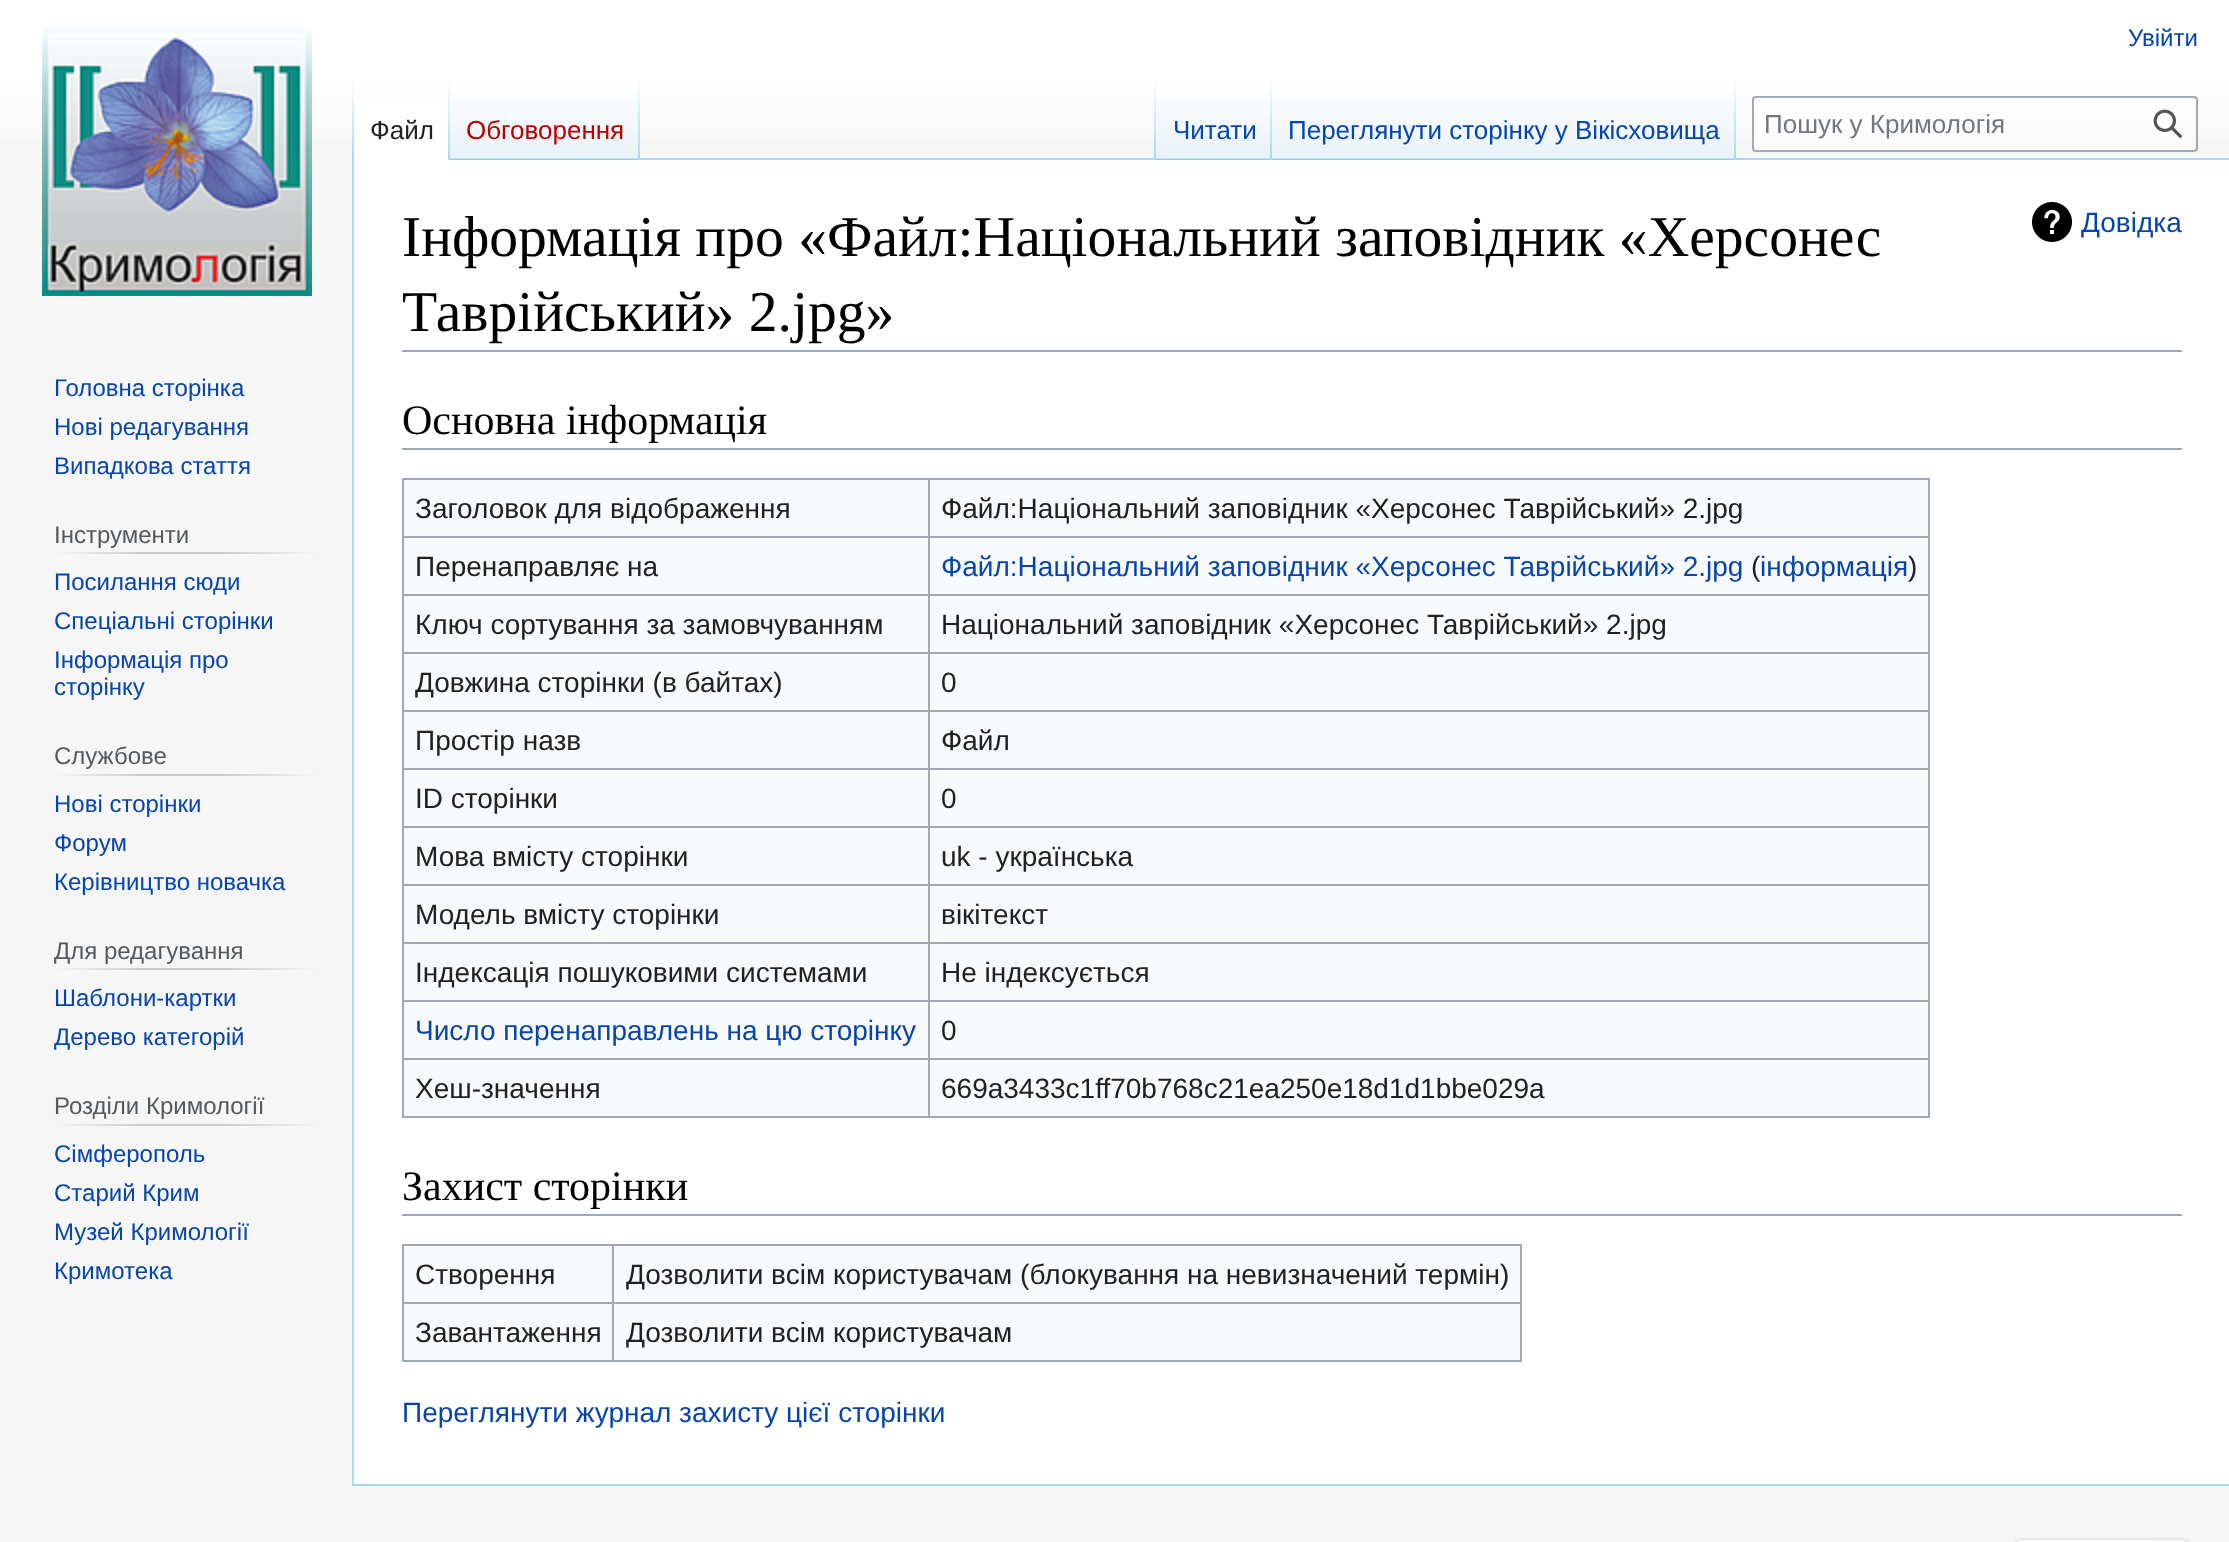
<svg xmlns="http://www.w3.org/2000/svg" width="2229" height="1542">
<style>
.a{font:24px Liberation Sans;fill:#0645ad}
.b{font:26px Liberation Sans;fill:#202122}
.c{font:26px Liberation Sans;fill:#ba0000}
.d{font:26px Liberation Sans;fill:#0645ad}
.e{font:26px Liberation Sans;fill:#72777d}
.f{font:24px Liberation Sans;fill:#54595d}
.g{font:57.6px Liberation Serif;fill:#000}
.h{font:28px Liberation Sans;fill:#0645ad}
.i{font:42px Liberation Serif;fill:#000}
.j{font:28px Liberation Sans;fill:#202122}
</style>
<defs>
<linearGradient id="g1" gradientUnits="userSpaceOnUse" x1="1115" y1="0" x2="1115" y2="160"><stop offset="0.5" stop-color="#fff"/><stop offset="1" stop-color="#f6f6f6"/></linearGradient>
<linearGradient id="g2" gradientUnits="userSpaceOnUse" x1="353" y1="80" x2="353" y2="160"><stop offset="0" stop-color="#a7d7f9" stop-opacity="0"/><stop offset="1" stop-color="#a7d7f9"/></linearGradient>
<linearGradient id="g3" gradientUnits="userSpaceOnUse" x1="449" y1="80" x2="449" y2="160"><stop offset="0" stop-color="#fff"/><stop offset="1" stop-color="#a7d7f9"/></linearGradient>
<linearGradient id="g4" gradientUnits="userSpaceOnUse" x1="545" y1="160" x2="545" y2="80"><stop offset="0" stop-color="#77c1f6"/><stop offset="0.03" stop-color="#e8f2f8"/><stop offset="1" stop-color="#fff"/></linearGradient>
<linearGradient id="g5" gradientUnits="userSpaceOnUse" x1="639" y1="80" x2="639" y2="160"><stop offset="0" stop-color="#a7d7f9" stop-opacity="0"/><stop offset="1" stop-color="#a7d7f9"/></linearGradient>
<linearGradient id="g6" gradientUnits="userSpaceOnUse" x1="1155" y1="80" x2="1155" y2="160"><stop offset="0" stop-color="#a7d7f9" stop-opacity="0"/><stop offset="1" stop-color="#a7d7f9"/></linearGradient>
<linearGradient id="g7" gradientUnits="userSpaceOnUse" x1="1214" y1="160" x2="1214" y2="80"><stop offset="0" stop-color="#77c1f6"/><stop offset="0.03" stop-color="#e8f2f8"/><stop offset="1" stop-color="#fff"/></linearGradient>
<linearGradient id="g8" gradientUnits="userSpaceOnUse" x1="1271" y1="80" x2="1271" y2="160"><stop offset="0" stop-color="#a7d7f9" stop-opacity="0"/><stop offset="1" stop-color="#a7d7f9"/></linearGradient>
<linearGradient id="g9" gradientUnits="userSpaceOnUse" x1="1504" y1="160" x2="1504" y2="80"><stop offset="0" stop-color="#77c1f6"/><stop offset="0.03" stop-color="#e8f2f8"/><stop offset="1" stop-color="#fff"/></linearGradient>
<linearGradient id="g10" gradientUnits="userSpaceOnUse" x1="1735" y1="80" x2="1735" y2="160"><stop offset="0" stop-color="#a7d7f9" stop-opacity="0"/><stop offset="1" stop-color="#a7d7f9"/></linearGradient>
<linearGradient id="g11" gradientUnits="userSpaceOnUse" x1="54" y1="553" x2="316" y2="553"><stop offset="0" stop-color="#f6f6f6"/><stop offset="0.33" stop-color="#c8ccd1"/><stop offset="0.66" stop-color="#c8ccd1"/><stop offset="1" stop-color="#f6f6f6"/></linearGradient>
<linearGradient id="g12" gradientUnits="userSpaceOnUse" x1="54" y1="775" x2="316" y2="775"><stop offset="0" stop-color="#f6f6f6"/><stop offset="0.33" stop-color="#c8ccd1"/><stop offset="0.66" stop-color="#c8ccd1"/><stop offset="1" stop-color="#f6f6f6"/></linearGradient>
<linearGradient id="g13" gradientUnits="userSpaceOnUse" x1="54" y1="969" x2="316" y2="969"><stop offset="0" stop-color="#f6f6f6"/><stop offset="0.33" stop-color="#c8ccd1"/><stop offset="0.66" stop-color="#c8ccd1"/><stop offset="1" stop-color="#f6f6f6"/></linearGradient>
<linearGradient id="g14" gradientUnits="userSpaceOnUse" x1="54" y1="1125" x2="316" y2="1125"><stop offset="0" stop-color="#f6f6f6"/><stop offset="0.33" stop-color="#c8ccd1"/><stop offset="0.66" stop-color="#c8ccd1"/><stop offset="1" stop-color="#f6f6f6"/></linearGradient>
</defs>
<rect width="100%" height="100%" fill="#f6f6f6"/>
<path fill="url(#g1)" d="M0 0h2229v138H0z"/>
<path fill="#a7d7f9" d="M352 1484h1877v2H352z"/>
<path fill="#a7d7f9" d="M352 158h2v1328H352z"/>
<path fill="url(#g2)" d="M352 80h2v80H352z"/>
<path fill="#fff" d="M354 102h94v58H354z"/>
<path fill="url(#g3)" d="M448 80h2v80H448z"/>
<path fill="url(#g4)" d="M450 92h190v68H450z"/>
<path fill="url(#g5)" d="M638 80h2v80H638z"/>
<path fill="#a7d7f9" d="M640 158h1589v2H640z"/>
<path fill="url(#g6)" d="M1154 80h2v80H1154z"/>
<path fill="url(#g7)" d="M1156 92h116v68H1156z"/>
<path fill="url(#g8)" d="M1270 80h2v80H1270z"/>
<path fill="url(#g9)" d="M1272 92h464v68H1272z"/>
<path fill="url(#g10)" d="M1734 80h2v80H1734z"/>
<rect fill="#ffffff80" stroke="#a2a9b1" stroke-width="2" x="1753" y="97" width="444" height="54" rx="3"/>
<image href="1.png" x="2153" y="109" width="30" height="30"/>
<image href="2.png" x="42" y="27" width="270" height="269"/>
<path fill="url(#g11)" d="M54 552h262v2H54z"/>
<path fill="url(#g12)" d="M54 774h262v2H54z"/>
<path fill="url(#g13)" d="M54 968h262v2H54z"/>
<path fill="url(#g14)" d="M54 1124h262v2H54z"/>
<path fill="#fff" d="M354 160h1875v1324H354z"/>
<path fill="#a2a9b1" d="M402 350h1780v2H402z"/>
<image href="3.png" x="2032" y="202" width="40" height="40"/>
<path fill="#a2a9b1" d="M402 448h1780v2H402z"/>
<path fill="#f8f9fa" d="M404 480h1524v636H404z"/>
<path fill="#a2a9b1" d="M402 478h1528v2H402z"/>
<path fill="#a2a9b1" d="M1928 478h2v640H1928z"/>
<path fill="#a2a9b1" d="M402 1116h1528v2H402z"/>
<path fill="#a2a9b1" d="M402 478h2v640H402z"/>
<path fill="#a2a9b1" d="M928 536h1002v2H928z"/>
<path fill="#a2a9b1" d="M928 594h1002v2H928z"/>
<path fill="#a2a9b1" d="M928 652h1002v2H928z"/>
<path fill="#a2a9b1" d="M928 710h1002v2H928z"/>
<path fill="#a2a9b1" d="M928 768h1002v2H928z"/>
<path fill="#a2a9b1" d="M928 826h1002v2H928z"/>
<path fill="#a2a9b1" d="M928 884h1002v2H928z"/>
<path fill="#a2a9b1" d="M928 942h1002v2H928z"/>
<path fill="#a2a9b1" d="M928 1000h1002v2H928z"/>
<path fill="#a2a9b1" d="M928 1058h1002v2H928z"/>
<path fill="#a2a9b1" d="M928 1058h2v60H928z"/>
<path fill="#a2a9b1" d="M402 1058h528v2H402z"/>
<path fill="#a2a9b1" d="M928 1000h2v60H928z"/>
<path fill="#a2a9b1" d="M402 1000h528v2H402z"/>
<path fill="#a2a9b1" d="M928 942h2v60H928z"/>
<path fill="#a2a9b1" d="M402 942h528v2H402z"/>
<path fill="#a2a9b1" d="M928 884h2v60H928z"/>
<path fill="#a2a9b1" d="M402 884h528v2H402z"/>
<path fill="#a2a9b1" d="M928 826h2v60H928z"/>
<path fill="#a2a9b1" d="M402 826h528v2H402z"/>
<path fill="#a2a9b1" d="M928 768h2v60H928z"/>
<path fill="#a2a9b1" d="M402 768h528v2H402z"/>
<path fill="#a2a9b1" d="M928 710h2v60H928z"/>
<path fill="#a2a9b1" d="M402 710h528v2H402z"/>
<path fill="#a2a9b1" d="M928 652h2v60H928z"/>
<path fill="#a2a9b1" d="M402 652h528v2H402z"/>
<path fill="#a2a9b1" d="M928 594h2v60H928z"/>
<path fill="#a2a9b1" d="M402 594h528v2H402z"/>
<path fill="#a2a9b1" d="M928 536h2v60H928z"/>
<path fill="#a2a9b1" d="M402 536h528v2H402z"/>
<path fill="#a2a9b1" d="M928 478h2v60H928z"/>
<path fill="#a2a9b1" d="M402 1214h1780v2H402z"/>
<path fill="#f8f9fa" d="M404 1246h1116v114H404z"/>
<path fill="#a2a9b1" d="M402 1244h1120v2H402z"/>
<path fill="#a2a9b1" d="M1520 1244h2v118H1520z"/>
<path fill="#a2a9b1" d="M402 1360h1120v2H402z"/>
<path fill="#a2a9b1" d="M402 1244h2v118H402z"/>
<path fill="#a2a9b1" d="M612 1302h910v2H612z"/>
<path fill="#a2a9b1" d="M612 1302h2v60H612z"/>
<path fill="#a2a9b1" d="M402 1302h212v2H402z"/>
<path fill="#a2a9b1" d="M612 1244h2v60H612z"/>
<image href="4.png" x="2015" y="1538" width="174" height="4"/>
<text class="a" x="2128" y="46">Увійти</text>
<text class="b" x="370" y="139">Файл</text>
<text class="c" x="466" y="139">Обговорення</text>
<text class="d" x="1173" y="139">Читати</text>
<text class="d" x="1288" y="139">Переглянути сторінку у Вікісховища</text>
<text class="e" x="1764" y="133">Пошук у Кримологія</text>
<text class="a" x="54" y="396">Головна сторінка</text>
<text class="a" x="54" y="435">Нові редагування</text>
<text class="a" x="54" y="474">Випадкова стаття</text>
<text class="f" x="54" y="543">Інструменти</text>
<text class="a" x="54" y="590">Посилання сюди</text>
<text class="a" x="54" y="629">Спеціальні сторінки</text>
<text class="a" x="54" y="668">Інформація про</text>
<text class="a" x="54" y="695">сторінку</text>
<text class="f" x="54" y="764">Службове</text>
<text class="a" x="54" y="812">Нові сторінки</text>
<text class="a" x="54" y="851">Форум</text>
<text class="a" x="54" y="890">Керівництво новачка</text>
<text class="f" x="54" y="959">Для редагування</text>
<text class="a" x="54" y="1006">Шаблони-картки</text>
<text class="a" x="54" y="1045">Дерево категорій</text>
<text class="f" x="54" y="1114">Розділи Кримології</text>
<text class="a" x="54" y="1162">Сімферополь</text>
<text class="a" x="54" y="1201">Старий Крим</text>
<text class="a" x="54" y="1240">Музей Кримології</text>
<text class="a" x="54" y="1279">Кримотека</text>
<text class="g" x="402" y="256">Інформація про «Файл:Національний заповідник «Херсонес</text>
<text class="g" x="402" y="331">Таврійський» 2.jpg»</text>
<text class="h" x="2081" y="232">Довідка</text>
<text class="i" x="402" y="434">Основна інформація</text>
<text class="j" x="415" y="518">Заголовок для відображення</text>
<text class="j" x="941" y="518">Файл:Національний заповідник «Херсонес Таврійський» 2.jpg</text>
<text class="j" x="415" y="576">Перенаправляє на</text>
<text class="h" x="941" y="576">Файл:Національний заповідник «Херсонес Таврійський» 2.jpg</text>
<text class="j" x="1751" y="576">(</text>
<text class="h" x="1760" y="576">інформація</text>
<text class="j" x="1908" y="576">)</text>
<text class="j" x="415" y="634">Ключ сортування за замовчуванням</text>
<text class="j" x="941" y="634">Національний заповідник «Херсонес Таврійський» 2.jpg</text>
<text class="j" x="415" y="692">Довжина сторінки (в байтах)</text>
<text class="j" x="941" y="692">0</text>
<text class="j" x="415" y="750">Простір назв</text>
<text class="j" x="941" y="750">Файл</text>
<text class="j" x="415" y="808">ID сторінки</text>
<text class="j" x="941" y="808">0</text>
<text class="j" x="415" y="866">Мова вмісту сторінки</text>
<text class="j" x="941" y="866">uk - українська</text>
<text class="j" x="415" y="924">Модель вмісту сторінки</text>
<text class="j" x="941" y="924">вікітекст</text>
<text class="j" x="415" y="982">Індексація пошуковими системами</text>
<text class="j" x="941" y="982">Не індексується</text>
<text class="h" x="415" y="1040">Число перенаправлень на цю сторінку</text>
<text class="j" x="941" y="1040">0</text>
<text class="j" x="415" y="1098">Хеш-значення</text>
<text class="j" x="941" y="1098">669a3433c1ff70b768c21ea250e18d1d1bbe029a</text>
<text class="i" x="402" y="1200">Захист сторінки</text>
<text class="j" x="415" y="1284">Створення</text>
<text class="j" x="626" y="1284">Дозволити всім користувачам (блокування на невизначений термін)</text>
<text class="j" x="415" y="1342">Завантаження</text>
<text class="j" x="626" y="1342">Дозволити всім користувачам</text>
<text class="h" x="402" y="1422">Переглянути журнал захисту цієї сторінки</text>
</svg>
